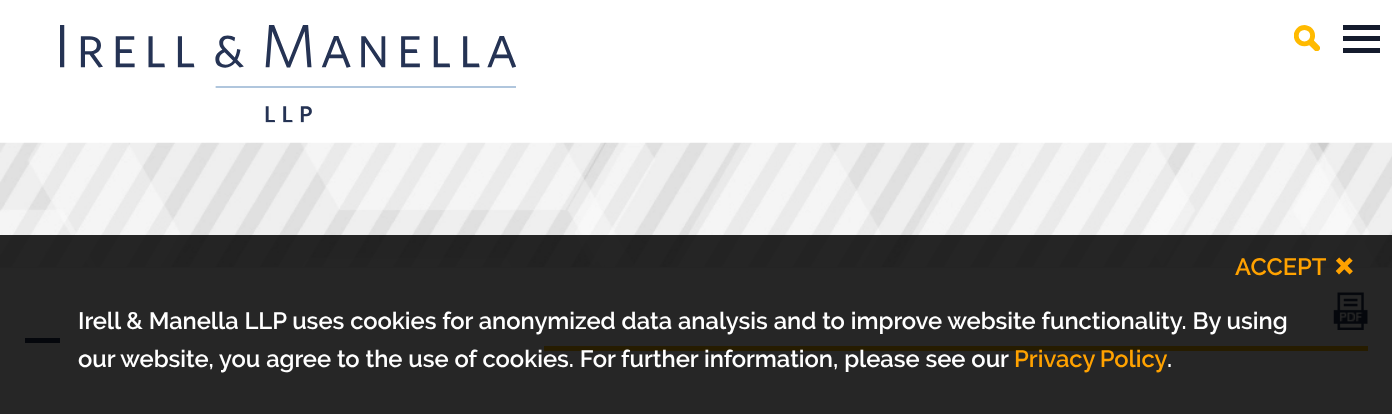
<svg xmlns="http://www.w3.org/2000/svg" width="1392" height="414">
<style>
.a{font:600 23.75px Raleway;fill:#ffa200}
.b{font:600 48px Raleway;fill:#ffa200}
.c{font:600 23.75px Raleway;fill:#fff}
</style>
<rect width="100%" height="100%" fill="#fff"/>
<image href="1.png" x="60" y="25" width="456" height="98"/>
<image href="2.png" x="1294" y="25" width="26" height="26"/>
<path fill="#141b2d" d="M1343 25h37v28H1343z"/>
<path fill="#fff" d="M1343 30h37v6H1343z"/>
<path fill="#fff" d="M1343 41h37v7H1343z"/>
<path fill="#ededed" d="M0 267h1392v1H0z"/>
<image href="3.png" x="0" y="142" width="1392" height="125"/>
<path fill="#243252" d="M25 338h35v5H25z"/>
<image href="4.png" x="1333" y="292" width="35" height="38"/>
<path fill="#ffba00" d="M544 346h824v5H544z"/>
<path fill="#000000d9" d="M0 235h1392v179H0z"/>
<text class="a" x="1235" y="275">ACCEPT</text>
<text class="b" x="1333" y="279">×</text>
<text class="c" x="78" y="329">Irell &amp; Manella LLP uses cookies for anonymized data analysis and to improve website functionality. By using</text>
<text class="c" x="78" y="367">our website, you agree to the use of cookies. For further information, please see our</text>
<text class="a" x="1014" y="367" word-spacing="-1">Privacy Policy</text>
<text class="c" x="1167" y="367">.</text>
</svg>
